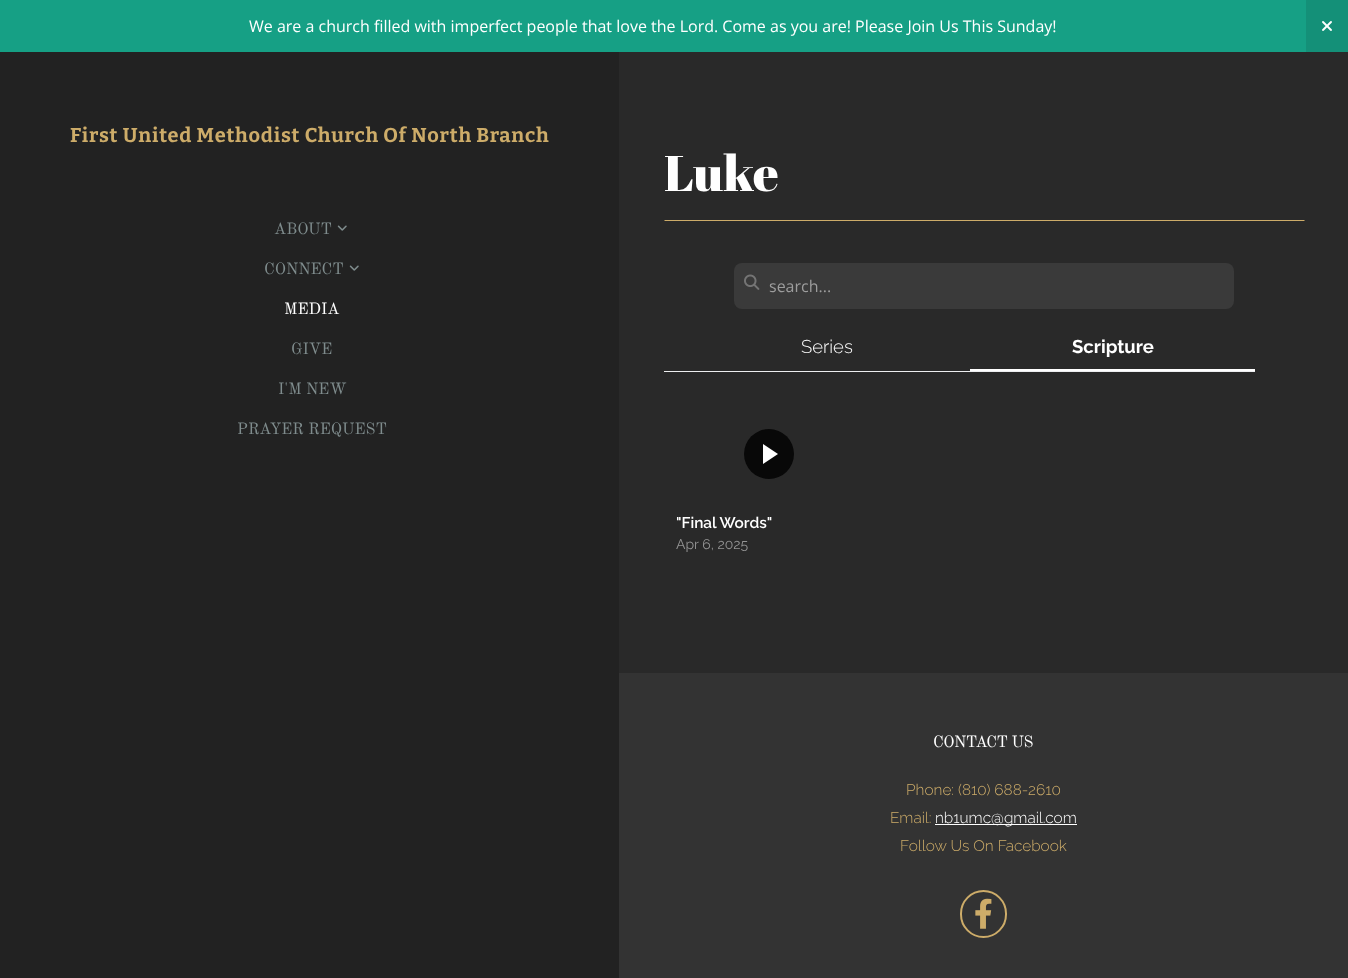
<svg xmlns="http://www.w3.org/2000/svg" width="1348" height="978">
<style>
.a{font:16px Open Sans;fill:#fff}
.b{font:bold 20px Bitter;letter-spacing:0.8px;fill:#cdac69}
.c{font:16px Old Standard TT;fill:#7f8c8d}
.d{font:16px Old Standard TT;fill:#fff}
.e{font:50px Abril Fatface;fill:#fff}
.f{font:16px Open Sans;fill:#9d9d9d}
.g{font:300 18.5px Raleway;fill:#fff}
.h{font:bold 18.5px Raleway;fill:#fff}
.i{font:600 15.4px Raleway;fill:#fff}
.j{font:14px Raleway;fill:#949494}
.k{font:16px Old Standard TT;letter-spacing:-0.5px;fill:#fff}
.l{font:300 15.4px Raleway;fill:#cdac69}
.m{font:300 15.4px Raleway;fill:#fff}
</style>
<rect width="100%" height="100%" fill="#222"/>
<path fill="#16a085" d="M0 0h1306v52H0z"/>
<path fill="#149078" d="M1306 0h42v52H1306z"/>
<image href="1.png" x="1322" y="21" width="10" height="10"/>
<image href="2.png" x="337" y="225" width="10" height="6"/>
<image href="2.png" x="349" y="265" width="10" height="6"/>
<path fill="#292929" d="M619 52h729v621H619z"/>
<path fill="#cdac69" d="M1305 221h-641l1-1h639z"/>
<rect fill="#3a3a3a" x="734" y="263" width="500" height="46" rx="8"/>
<image href="3.png" x="744" y="274" width="16" height="16"/>
<path fill="#edeef0" d="M664 371h591v1H664z"/>
<path fill="#fff" d="M970 369h285v2H970z"/>
<circle fill="#080808" cx="769" cy="454" r="25"/>
<path fill="#fff" d="M763 464v-20l15 10z"/>
<path fill="#333" d="M619 673h729v305H619z"/>
<path fill="#fff" d="M935 824h142v1H935z"/>
<rect fill="none" stroke="#cdac69" stroke-width="2" x="961" y="891" width="45" height="46" rx="22.5"/>
<image href="4.png" x="975" y="898" width="17" height="31"/>
<text class="a" x="249" y="32">We are a church filled with imperfect people that love the Lord. Come as you are! Please Join Us This Sunday!</text>
<text class="b" x="70" y="142">First United Methodist Church Of North Branch</text>
<text class="c" x="274" y="234">ABOUT</text>
<text class="c" x="264" y="274">CONNECT</text>
<text class="d" x="284" y="314">MEDIA</text>
<text class="c" x="291" y="354">GIVE</text>
<text class="c" x="278" y="394">I'M NEW</text>
<text class="c" x="237" y="434">PRAYER REQUEST</text>
<text class="e" x="664" y="191">Luke</text>
<text class="f" x="769" y="292">search...</text>
<text class="g" x="801" y="353">Series</text>
<text class="h" x="1072" y="353">Scripture</text>
<text class="i" x="676" y="528">"Final Words"</text>
<text class="j" x="676" y="549">Apr 6, 2025</text>
<text class="k" x="933" y="747">CONTACT US</text>
<text class="l" x="906" y="795">Phone: (810) 688-2610</text>
<text class="l" x="890" y="823">Email:</text>
<text class="m" x="935" y="823">nb1umc@gmail.com</text>
<text class="l" x="900" y="851">Follow Us On Facebook</text>
</svg>
